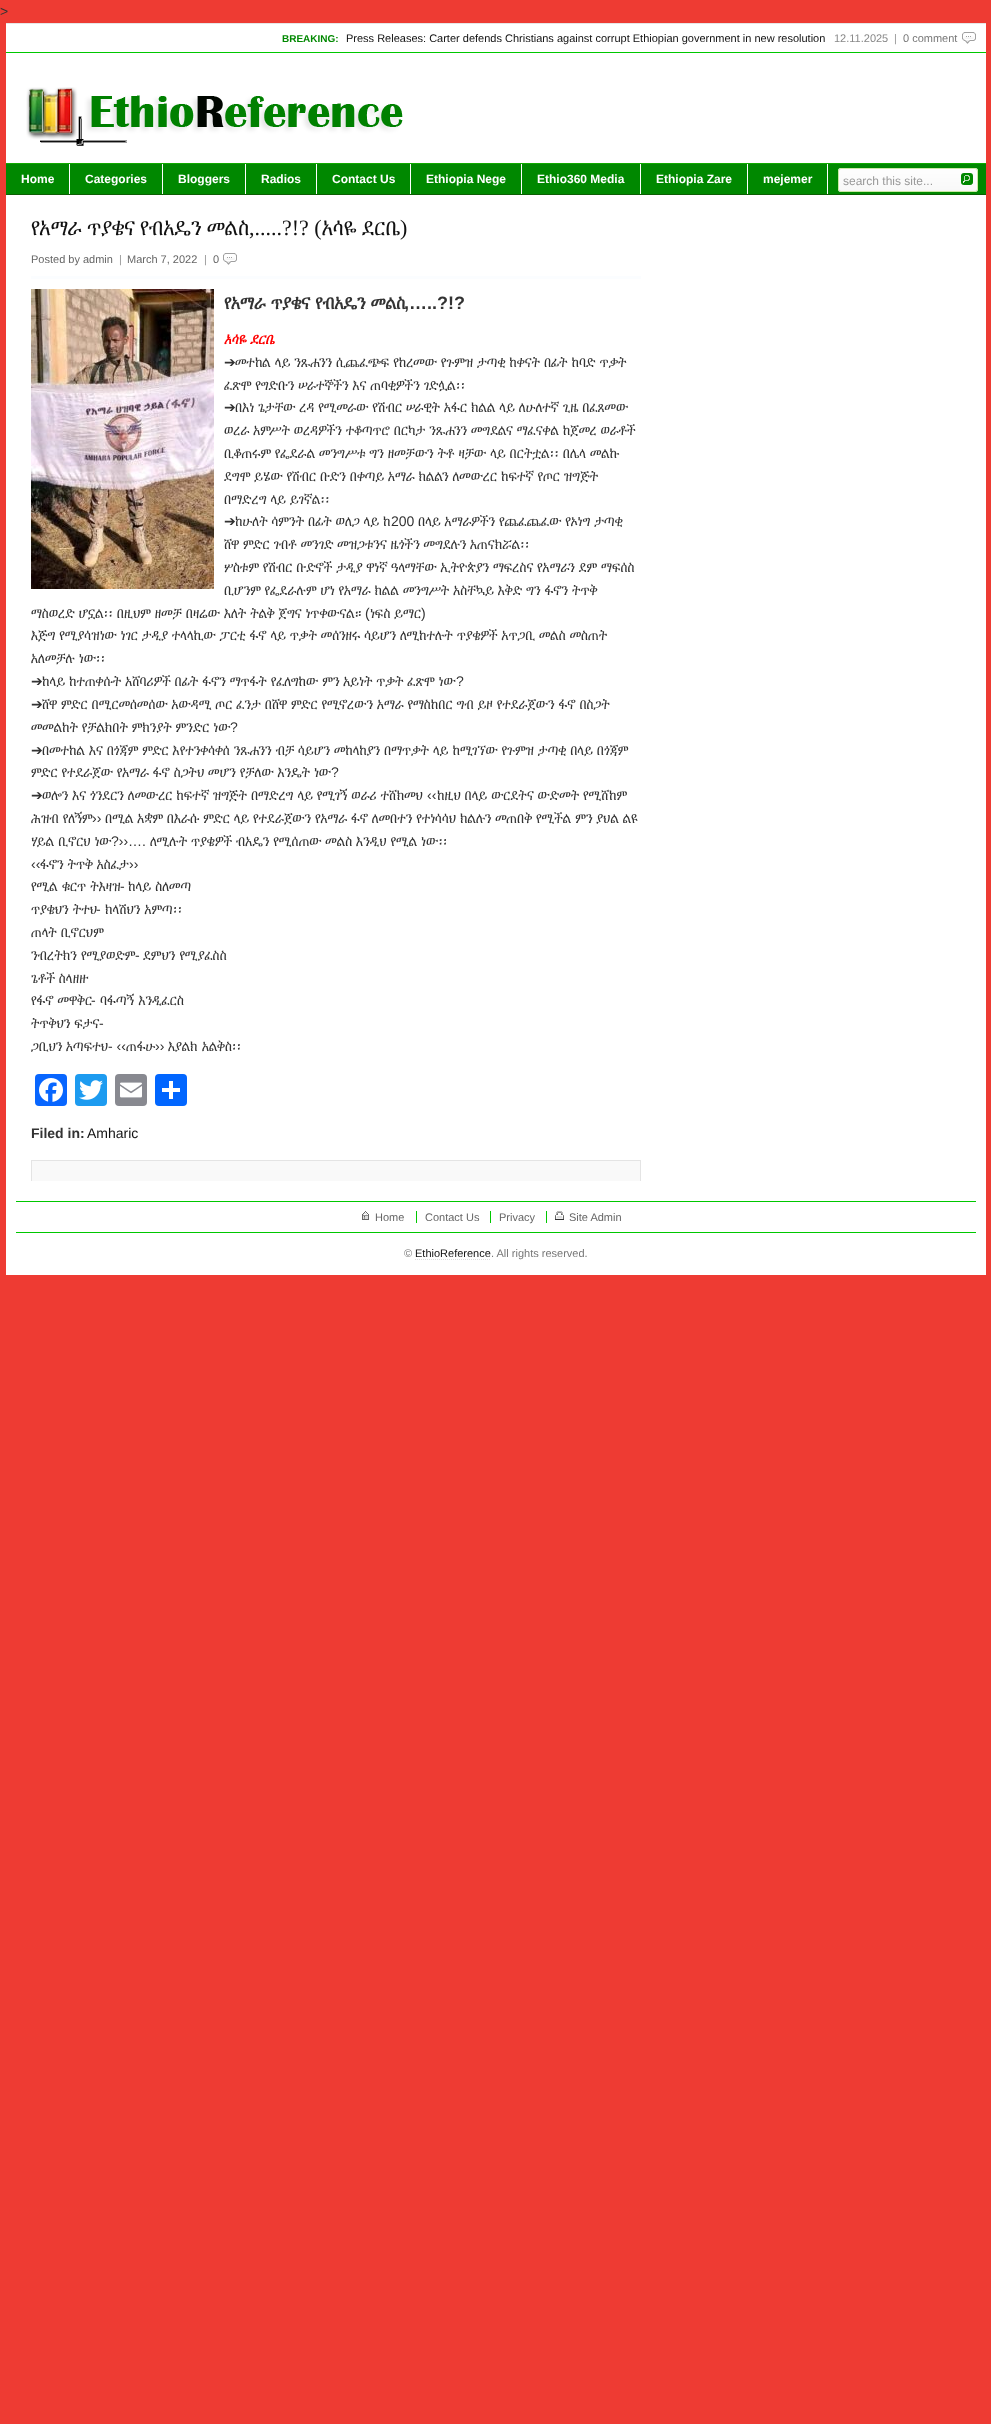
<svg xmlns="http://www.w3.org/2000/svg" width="991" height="2424">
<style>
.a{font:14px Liberation Sans;fill:#333}
.b{font:bold 10px Liberation Sans;fill:#080}
.c{font:11px Liberation Sans;fill:#111}
.d{font:11px Liberation Sans;fill:#888}
.e{font:11px Liberation Sans;fill:#999}
.f{font:11px Liberation Sans;fill:#777}
.g{font:bold 12px Liberation Sans;fill:#fff}
.h{font:12px Liberation Sans;fill:#999}
.i{font:22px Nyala;fill:#111}
.j{font:22px Liberation Serif;fill:#111}
.k{font:11px Liberation Sans;fill:#666}
.l{font:bold 18px Nyala;fill:#333}
.m{font:bold 18px Liberation Sans;fill:#333}
.n{font:italic bold 14px Nyala;fill:#f00}
.o{font:14px DejaVu Sans;fill:#333}
.p{font:14px Nyala;fill:#333}
.q{font:bold 14px Liberation Sans;fill:#333}
.r{font:14px Liberation Sans;fill:#111}
</style>
<defs>
<clipPath id="clip1"><path d="M31 210h610v971H31z"/></clipPath>
</defs>
<rect width="100%" height="100%" fill="#ee3b33"/>
<path fill="#fff" d="M6 24h980v1251H6z"/>
<path fill="#e6e6e6" d="M6 23h980v1H6z"/>
<image href="1.png" x="962" y="32" width="14" height="12"/>
<path fill="#00c800" d="M6 52h980v1H6z"/>
<image href="2.png" x="26" y="87" width="377" height="59"/>
<path fill="#080" d="M6 164h980v30H6z"/>
<path fill="#10ab00" d="M6 163h980v1H6z"/>
<path fill="#0c5e03" d="M6 194h980v1H6z"/>
<path fill="#fff" d="M69 164h1v30H69z"/>
<path fill="#fff" d="M162 164h1v30H162z"/>
<path fill="#fff" d="M245 164h1v30H245z"/>
<path fill="#fff" d="M316 164h1v30H316z"/>
<path fill="#fff" d="M410 164h1v30H410z"/>
<path fill="#fff" d="M521 164h1v30H521z"/>
<path fill="#fff" d="M640 164h1v30H640z"/>
<path fill="#fff" d="M747 164h1v30H747z"/>
<path fill="#fff" d="M827 164h1v30H827z"/>
<image href="3.png" x="838" y="168" width="140" height="24"/>
<rect fill="none" stroke="#cae9a3" x="838.5" y="168.5" width="139" height="23" rx="2.5"/>
<image href="4.png" x="961" y="173" width="12" height="12"/>
<path fill="#fbfdff" d="M31 276h610v3H31z"/>
<image href="1.png" x="223" y="253" width="14" height="12"/>
<image href="5.png" x="31" y="289" width="183" height="300"/>
<rect fill="#0866ff" x="35" y="1074" width="32" height="32" rx="4"/>
<image href="6.png" x="39" y="1078" width="24" height="24"/>
<rect fill="#1d9bf0" x="75" y="1074" width="32" height="32" rx="4"/>
<image href="7.png" x="79" y="1080" width="24" height="20"/>
<rect fill="#888990" x="115" y="1074" width="32" height="32" rx="4"/>
<image href="8.png" x="120" y="1082" width="22" height="16"/>
<rect fill="#0166ff" x="155" y="1074" width="32" height="32" rx="4"/>
<path fill="#fff" d="M169 1081h4v18H169z"/>
<path fill="#fff" d="M162 1088h18v4H162z"/>
<path fill="#f9f9f9" d="M32 1161h608v20H32z"/>
<path fill="#e4e4e4" d="M31 1160h610v1H31z"/>
<path fill="#e4e4e4" d="M640 1160h1v21H640z"/>
<path fill="#e4e4e4" d="M31 1160h1v21H31z"/>
<path fill="#00c800" d="M16 1201h960v1H16z"/>
<path fill="#00c800" d="M16 1232h960v1H16z"/>
<image href="9.png" x="362" y="1211" width="7" height="9"/>
<path fill="#00c800" d="M416 1211h1v12H416z"/>
<path fill="#00c800" d="M490 1211h1v12H490z"/>
<image href="10.png" x="555" y="1211" width="9" height="9"/>
<path fill="#00c800" d="M546 1211h1v12H546z"/>
<path fill="none" stroke="#ddd" stroke-dasharray="1 1" d="M415 1259.5h76"/>
<text class="a" x="0" y="16">&gt;</text>
<text class="b" x="282" y="42">BREAKING:</text>
<text class="c" x="346" y="42">Press Releases: Carter defends Christians against corrupt Ethiopian government in new resolution</text>
<text class="d" x="834" y="42">12.11.2025</text>
<text class="e" x="894" y="42">|</text>
<text class="f" x="903" y="42">0 comment</text>
<text class="g" x="21" y="183">Home</text>
<text class="g" x="85" y="183">Categories</text>
<text class="g" x="178" y="183">Bloggers</text>
<text class="g" x="261" y="183">Radios</text>
<text class="g" x="332" y="183">Contact Us</text>
<text class="g" x="426" y="183">Ethiopia Nege</text>
<text class="g" x="537" y="183">Ethio360 Media</text>
<text class="g" x="656" y="183">Ethiopia Zare</text>
<text class="g" x="763" y="183">mejemer</text>
<text class="h" x="843" y="185">search this site...</text>
<text class="i" x="31" y="235">የአማራ</text>
<text class="i" x="87" y="235">ጥያቄና</text>
<text class="i" x="140" y="235">የብአዴን</text>
<text class="i" x="207" y="235">መልስ</text>
<text class="j" x="249" y="235">,.....?!? (</text>
<text class="i" x="322" y="235">አሳዬ</text>
<text class="i" x="362" y="235">ደርቤ</text>
<text class="j" x="400" y="235">)</text>
<text class="k" x="31" y="263">Posted by admin</text>
<text class="e" x="119" y="263">|</text>
<text class="k" x="127" y="263">March 7, 2022</text>
<text class="e" x="204" y="263">|</text>
<text class="k" x="213" y="263">0</text>
<text class="l" x="224" y="309">የአማራ ጥያቄና የብአዴን መልስ</text>
<text class="m" x="404" y="309">,…..?!?</text>
<text class="n" x="224" y="344">አሳዬ ደርቤ</text>
<text class="o" x="224" y="367">➔</text>
<text class="p" x="235" y="367" word-spacing="-0.25">መተከል ላይ ንጹሐንን ሲጨፈጭፍ የከረመው የጉምዝ ታጣቂ ከቀናት በፊት ከባድ ጥቃት</text>
<text class="p" x="224" y="390" word-spacing="-0.25">ፈጽሞ የግድቡን ሠራተኞችን እና ጠባቂዎችን ገድሏል፡፡</text>
<text class="o" x="224" y="412">➔</text>
<text class="p" x="235" y="412" word-spacing="-0.25">በእነ ጌታቸው ረዳ የሚመራው የሽብር ሠራዊት አፋር ክልል ላይ ለሁለተኛ ጊዜ በፈጸመው</text>
<text class="p" x="224" y="435" word-spacing="-0.25">ወረራ አምሥት ወረዳዎችን ተቆጣጥሮ በርካታ ንጹሐንን መግደልና ማፈናቀል ከጀመረ ወራቶች</text>
<text class="p" x="224" y="458" word-spacing="-0.25">ቢቆጠሩም የፌደራል መንግሥቱ ግን ዘመቻውን ትቶ ዛቻው ላይ በርትቷል፡፡ በሌላ መልኩ</text>
<text class="p" x="224" y="481" word-spacing="-0.25">ደግሞ ይሄው የሽብር ቡድን በቀጣይ አማራ ክልልን ለመውረር ከፍተኛ የጦር ዝግጅት</text>
<text class="p" x="224" y="504" word-spacing="-0.25">በማድረግ ላይ ይገኛል፡፡</text>
<text class="o" x="224" y="526">➔</text>
<text class="p" x="235" y="526" word-spacing="-0.25">ከሁለት ሳምንት በፊት ወለጋ ላይ ከ</text>
<text class="a" x="391" y="526">200</text>
<text class="p" x="418" y="526" word-spacing="-0.25">በላይ አማራዎችን የጨፈጨፈው የኦነግ ታጣቂ</text>
<text class="p" x="224" y="549" word-spacing="-0.25">ሸዋ ምድር ገብቶ መንገድ መዝጋቱንና ዜጎችን መግደሉን አጠናክሯል፡፡</text>
<text class="p" x="224" y="572" word-spacing="-0.25">ሦስቱም የሽብር ቡድኖች ታዲያ ዋነኛ ዓላማቸው ኢትዮጵያን ማፍረስና የአማራን ደም ማፍሰስ</text>
<text class="p" x="224" y="595" word-spacing="-0.25">ቢሆንም የፌደራሉም ሆነ የአማራ ክልል መንግሥት አስቸኳይ እቅድ ግን ፋኖን ትጥቅ</text>
<text class="p" x="31" y="618" word-spacing="-0.25">ማስወረድ ሆኗል፡፡ በዚህም ዘመቻ በዛሬው እለት ትልቅ ጀግና ነጥቀውናል።</text>
<text class="a" x="365" y="618">(</text>
<text class="p" x="370" y="618" word-spacing="-0.25">ነፍስ ይማር</text>
<text class="a" x="421" y="618">)</text>
<text class="p" x="31" y="640" word-spacing="-0.25">እጅግ የሚያሳዝነው ነገር ታዲያ ተላላኪው ፓርቲ ፋኖ ላይ ጥቃት መሰንዘሩ ሳይሆን ለሚከተሉት ጥያቄዎች አጥጋቢ መልስ መስጠት</text>
<text class="p" x="31" y="663" word-spacing="-0.25">አለመቻሉ ነው፡፡</text>
<text class="o" x="31" y="686">➔</text>
<text class="p" x="42" y="686" word-spacing="-0.25">ከላይ ከተጠቀሱት አሸባሪዎች በፊት ፋኖን ማጥፋት የፈለግከው ምን አይነት ጥቃት ፈጽሞ ነው</text>
<text class="a" x="456" y="686">?</text>
<text class="o" x="31" y="709">➔</text>
<text class="p" x="42" y="709" word-spacing="-0.25">ሸዋ ምድር በሚርመሰመሰው አውዳሚ ጦር ፈንታ በሸዋ ምድር የሚኖረውን አማራ የማስከበር ግብ ይዞ የተደራጀውን ፋኖ በስጋት</text>
<text class="p" x="31" y="732" word-spacing="-0.25">መመልከት የቻልክበት ምክንያት ምንድር ነው</text>
<text class="a" x="230" y="732">?</text>
<text class="o" x="31" y="755">➔</text>
<text class="p" x="42" y="755" word-spacing="-0.25">በመተከል እና በጎጃም ምድር እየተንቀሳቀሰ ንጹሐንን ብቻ ሳይሆን መከላከያን በማጥቃት ላይ ከሚገኘው የጉምዝ ታጣቂ በላይ በጎጃም</text>
<text class="p" x="31" y="777" word-spacing="-0.25">ምድር የተደራጀው የአማራ ፋኖ ስጋትህ መሆን የቻለው እንዴት ነው</text>
<text class="a" x="331" y="777">?</text>
<text class="o" x="31" y="800">➔</text>
<text class="p" x="42" y="800" word-spacing="-0.25">ወሎን እና ጎንደርን ለመውረር ከፍተኛ ዝግጅት በማድረግ ላይ የሚገኝ ወራሪ ተሸክመህ</text>
<text class="a" x="427" y="800">‹‹</text>
<text class="p" x="437" y="800" word-spacing="-0.25">ከዚህ በላይ ውርደትና ውድመት የሚሸከም</text>
<text class="p" x="31" y="823" word-spacing="-0.25">ሕዝብ የለኝም</text>
<text class="a" x="92" y="823">››</text>
<text class="p" x="105" y="823" word-spacing="-0.25">በሚል አቋም በእራሱ ምድር ላይ የተደራጀውን የአማራ ፋኖ ለመበተን የተነሳሳህ ክልሉን መጠበቅ የሚችል ምን ያህል ልዩ</text>
<text class="p" x="31" y="846" word-spacing="-0.25">ሃይል ቢኖርህ ነው</text>
<text class="a" x="111" y="846">?››….</text>
<text class="p" x="150" y="846" word-spacing="-0.25">ለሚሉት ጥያቄዎች ብአዴን የሚሰጠው መልስ እንዲህ የሚል ነው፡፡</text>
<text class="a" x="31" y="869">‹‹</text>
<text class="p" x="40" y="869" word-spacing="-0.25">ፋኖን ትጥቅ አስፈታ</text>
<text class="a" x="129" y="869">››</text>
<text class="p" x="31" y="891">የሚል ቁርጥ ትእዛዝ</text>
<text class="a" x="120" y="891">-</text>
<text class="p" x="128" y="891">ከላይ ስለመጣ</text>
<text class="p" x="31" y="914">ጥያቄህን ትተህ</text>
<text class="a" x="96" y="914">-</text>
<text class="p" x="105" y="914">ክላሽህን አምጣ፡፡</text>
<text class="p" x="31" y="937" word-spacing="-0.25">ጠላት ቢኖርህም</text>
<text class="p" x="31" y="960">ንብረትክን የሚያወድም</text>
<text class="a" x="135" y="960">-</text>
<text class="p" x="143" y="960">ደምህን የሚያፈስስ</text>
<text class="p" x="31" y="983" word-spacing="-0.25">ጌቶች ስላዘዙ</text>
<text class="p" x="31" y="1005">የፋኖ መዋቅር</text>
<text class="a" x="91" y="1005">-</text>
<text class="p" x="100" y="1005">ባፋጣኝ እንዲፈርስ</text>
<text class="p" x="31" y="1028" word-spacing="-0.25">ትጥቅህን ፍታና</text>
<text class="a" x="99" y="1028">-</text>
<g clip-path="url(#clip1)">
<text class="p" x="31" y="1051">ጋቢህን</text>
</g>
<text class="p" x="66" y="1051">አጣፍተህ</text>
<text class="a" x="108" y="1051">- ‹‹</text>
<text class="p" x="126" y="1051">ጠፋሁ</text>
<text class="a" x="155" y="1051">››</text>
<text class="p" x="168" y="1051">እያልክ</text>
<text class="p" x="202" y="1051">አልቅስ፡፡</text>
<text class="q" x="31" y="1138">Filed in:</text>
<text class="r" x="87" y="1138">Amharic</text>
<text class="k" x="375" y="1221">Home</text>
<text class="k" x="425" y="1221">Contact Us</text>
<text class="k" x="499" y="1221">Privacy</text>
<text class="k" x="569" y="1221">Site Admin</text>
<text class="f" x="404" y="1257">©</text>
<text class="c" x="415" y="1257">EthioReference</text>
<text class="f" x="491" y="1257">. All rights reserved.</text>
</svg>
